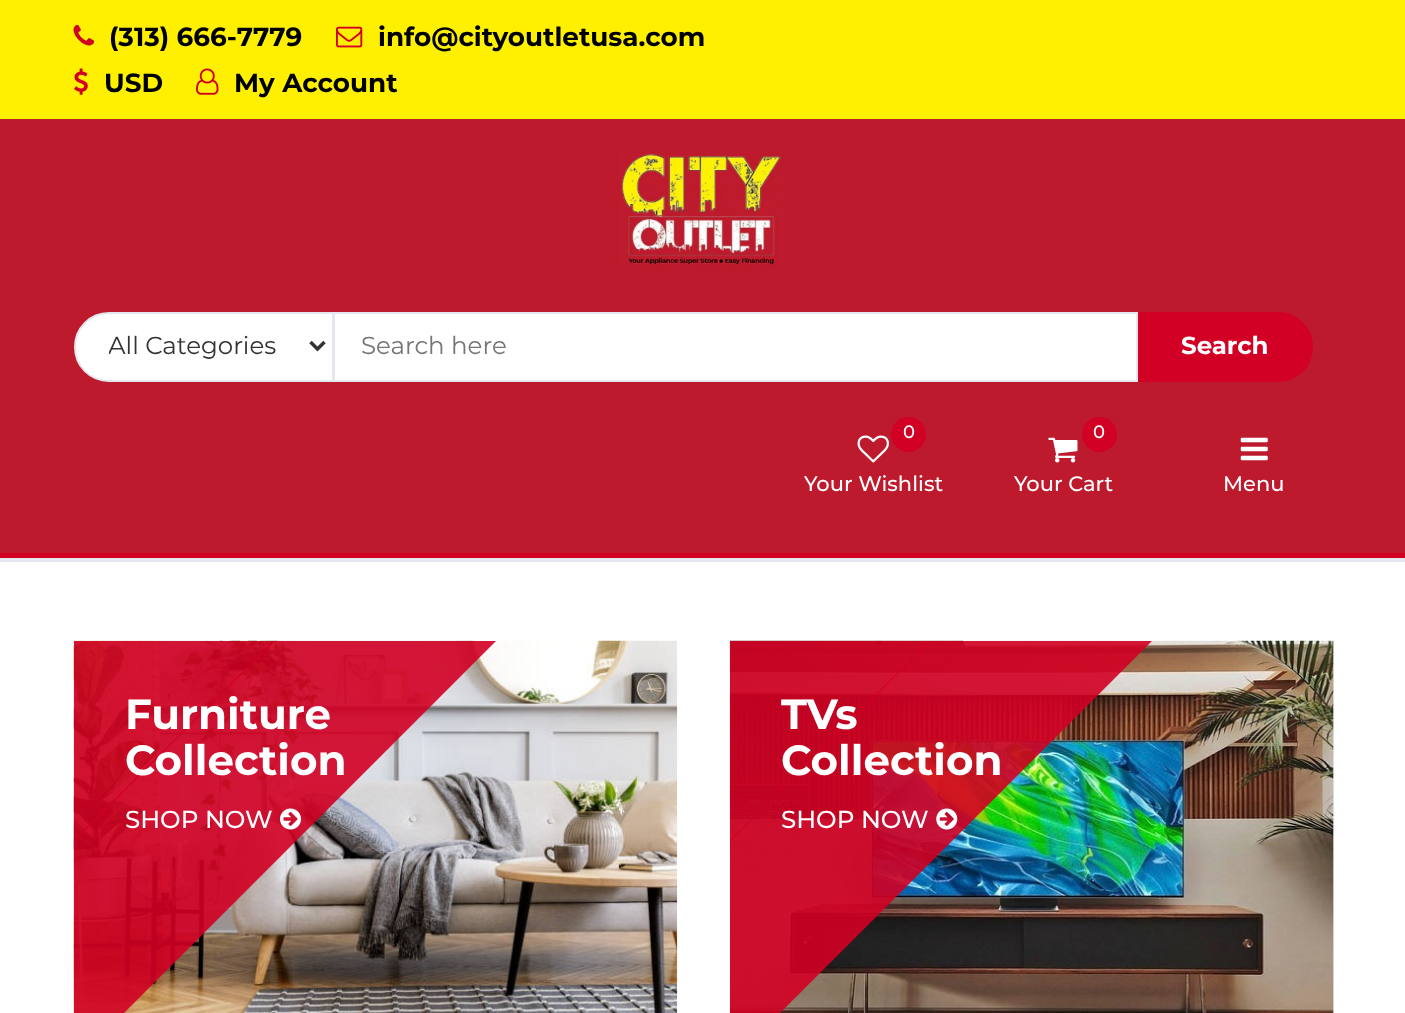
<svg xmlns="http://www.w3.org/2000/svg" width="1405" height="1013">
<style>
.a{font:bold 26.25px Montserrat;fill:#000}
.b{font:24.5px Montserrat;fill:#333}
.c{font:24.5px Montserrat;fill:#757575}
.d{font:bold 24.5px Montserrat;fill:#fff}
.e{font:500 18px Montserrat;fill:#fff}
.f{font:500 21px Montserrat;fill:#fff}
.g{font:bold 42px Montserrat;fill:#fff}
.h{font:500 24.5px Montserrat;fill:#fff}
</style>
<defs>
<clipPath id="clip1"><path d="M74 641h603v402H74z"/></clipPath>
<clipPath id="clip2"><path d="M730 641h604v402H730z"/></clipPath>
<clipPath id="clip3"><path d="M109 329h169v35H109z"/></clipPath>
</defs>
<rect width="100%" height="100%" fill="#fff"/>
<path fill="#fef000" d="M0 0h1405v119H0z"/>
<image href="1.png" x="73" y="24" width="22" height="22"/>
<image href="2.png" x="336" y="26" width="27" height="22"/>
<image href="3.png" x="74" y="68" width="14" height="27"/>
<image href="4.png" x="196" y="68" width="23" height="27"/>
<path fill="#bd1a2d" d="M0 119h1405v434H0z"/>
<image href="5.png" x="620" y="153" width="164" height="113"/>
<path fill="#fff" stroke="#e4e7ed" stroke-width="2" d="M109 313h224v68h-224c-19 0-34-15-34-34c0-19 15-34 34-34z"/>
<path fill="none" stroke="#333" stroke-width="3.5" d="M310.5 342l7 7l7-7"/>
<path fill="#fff" stroke="#e4e7ed" stroke-width="2" d="M334 313h803v68H334z"/>
<path fill="#d10024" d="M1138 312h140c19.5 0 35 15.5 35 35c0 19.5-15.5 35-35 35h-140z"/>
<circle fill="#d10024" cx="908.5" cy="434.5" r="17.5"/>
<image href="6.png" x="857" y="435" width="32" height="28"/>
<circle fill="#d10024" cx="1099.5" cy="434.5" r="17.5"/>
<image href="7.png" x="1048" y="437" width="30" height="26"/>
<image href="8.png" x="1240" y="437" width="28" height="24"/>
<path fill="#d10024" d="M0 553h1405v5H0z"/>
<path fill="#e4e7ed" d="M0 558h1405v4H0z"/>
<image href="9.png" x="73" y="640" width="605" height="373"/>
<g clip-path="url(#clip1)">
<path fill="#d10024e6" d="M274 640h223l-402 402h-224z"/>
<path fill="#d10024e6" d="M-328 640h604l-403 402h-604z"/>
</g>
<image href="10.png" x="280" y="808" width="21" height="22"/>
<path fill="#e4e7ed" d="M1333 641h1v372H1333z"/>
<image href="11.png" x="729" y="640" width="605" height="373"/>
<g clip-path="url(#clip2)">
<path fill="#d10024e6" d="M930 640h223l-402 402h-223z"/>
<path fill="#d10024e6" d="M328 640h604l-403 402h-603z"/>
</g>
<image href="12.png" x="936" y="808" width="22" height="22"/>
<text class="a" x="109" y="46">(313) 666-7779</text>
<text class="a" x="378" y="46">info@cityoutletusa.com</text>
<text class="a" x="104" y="92">USD</text>
<text class="a" x="234" y="92">My Account</text>
<g clip-path="url(#clip3)">
<text class="b" x="108" y="354">All Categories</text>
</g>
<text class="c" x="361" y="354">Search here</text>
<text class="d" x="1181" y="354">Search</text>
<text class="e" x="903" y="438">0</text>
<text class="f" x="804" y="491">Your Wishlist</text>
<text class="e" x="1093" y="438">0</text>
<text class="f" x="1014" y="491">Your Cart</text>
<text class="f" x="1223" y="491">Menu</text>
<text class="g" x="125" y="729">Furniture</text>
<text class="g" x="125" y="775">Collection</text>
<text class="h" x="125" y="828">SHOP NOW</text>
<text class="g" x="781" y="729">TVs</text>
<text class="g" x="781" y="775">Collection</text>
<text class="h" x="781" y="828">SHOP NOW</text>
</svg>
